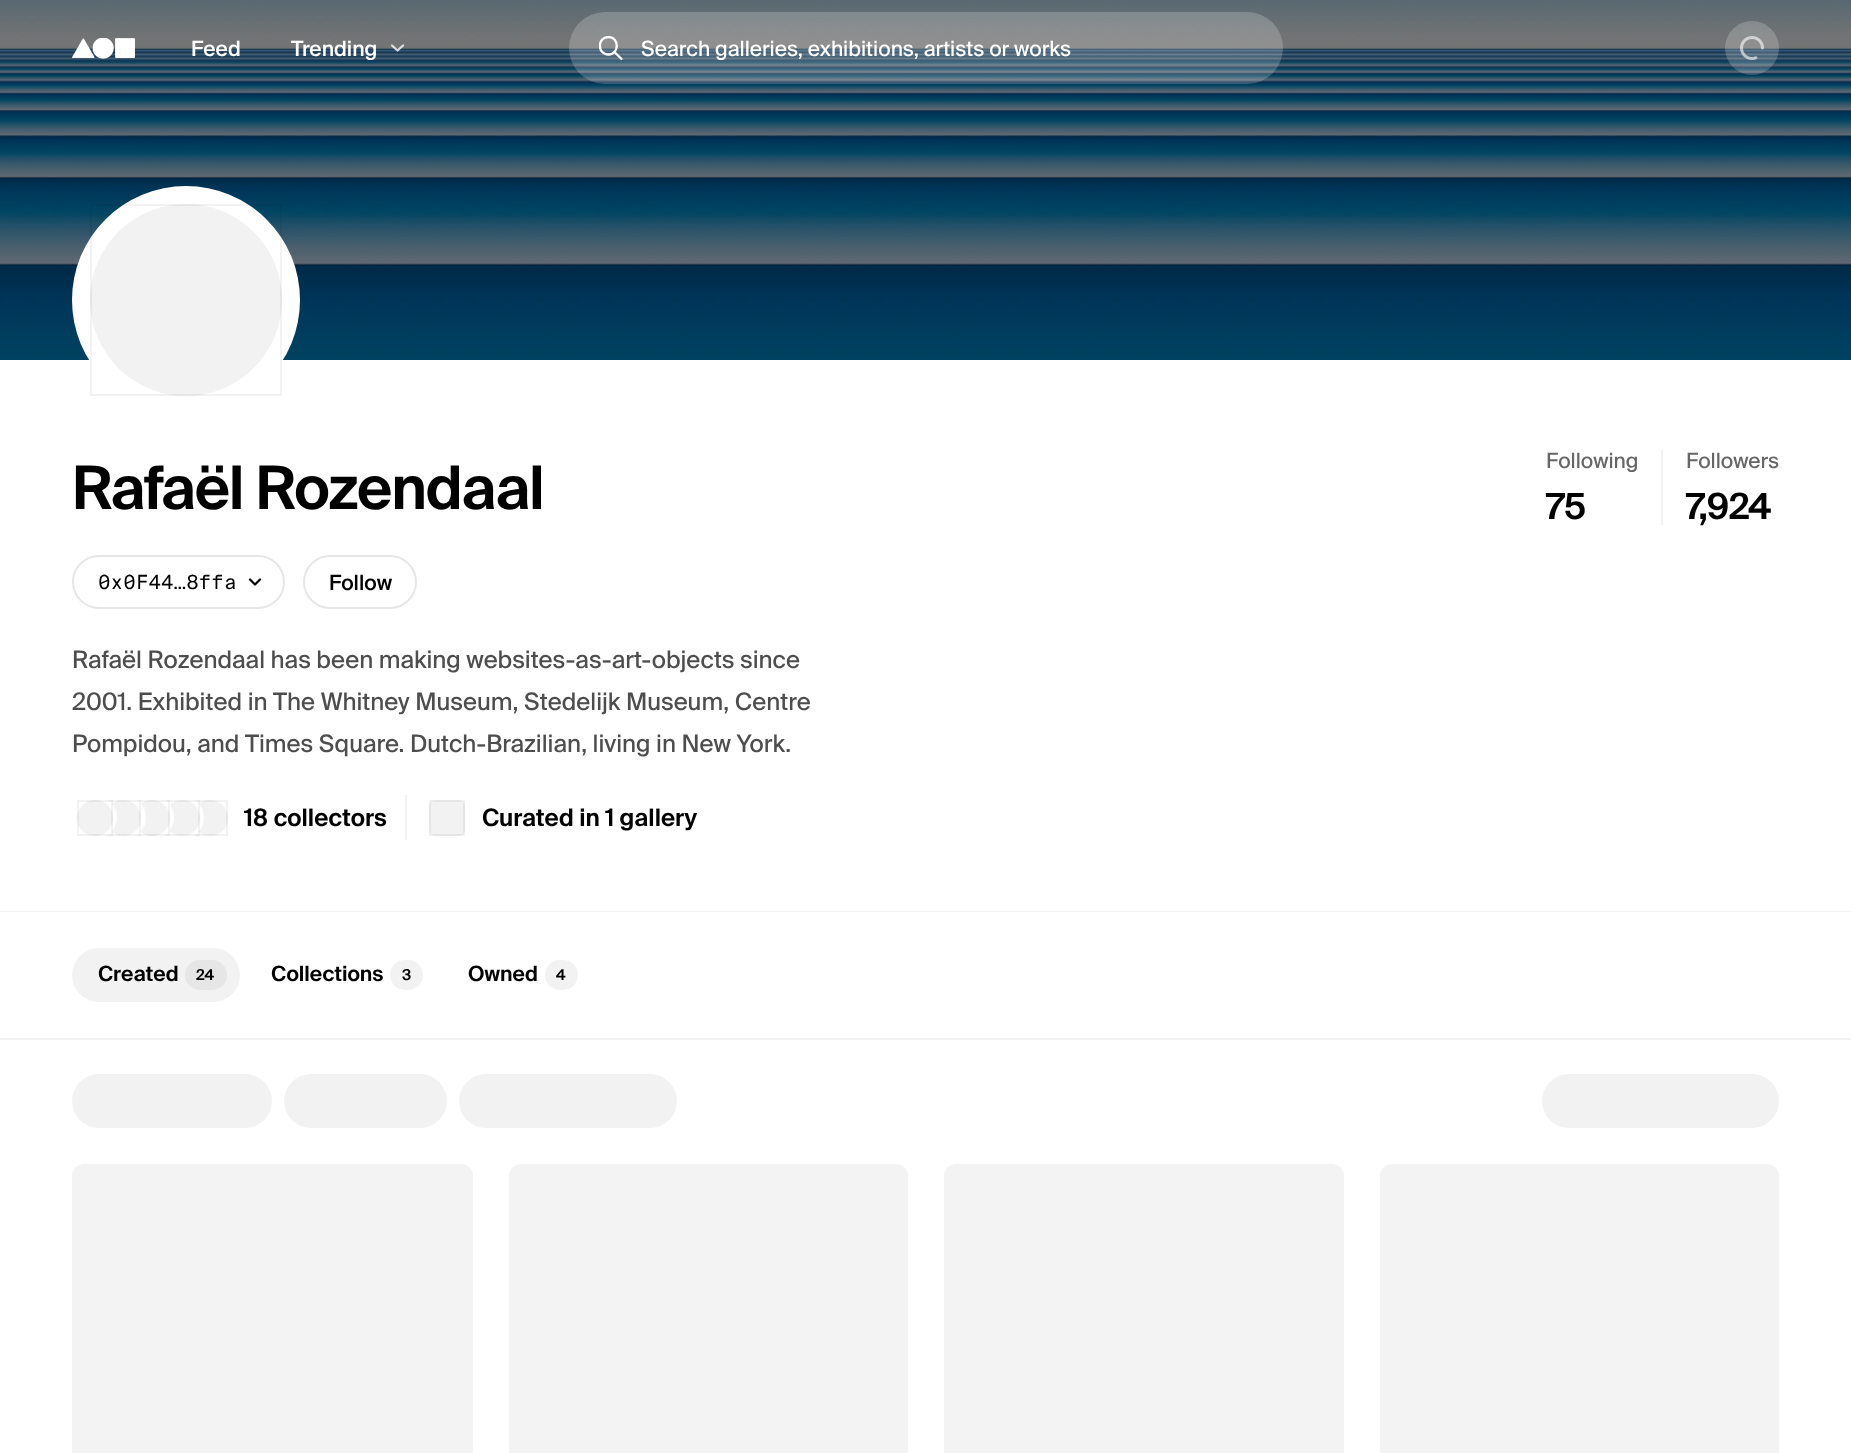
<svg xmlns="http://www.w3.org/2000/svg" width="1851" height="1453">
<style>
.a{font:500 21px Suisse;fill:#fff}
.b{font:21px Suisse;fill:#fff}
.c{font:600 60px Suisse;letter-spacing:-1.25px;fill:#000}
.d{font:21px Suisse;fill:#666}
.e{font:600 36px Suisse;letter-spacing:-0.5px;fill:#000}
.f{font:19.5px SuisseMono;fill:#000}
.g{font:500 21px Suisse;fill:#000}
.h{font:24px Suisse;fill:#4d4d4d}
.i{font:600 24px Suisse;fill:#000}
.j{font:600 21px Suisse;fill:#000}
.k{font:600 15px Suisse;fill:#000}
</style>
<defs>
<clipPath id="clip1"><path d="M599 36h24v24H599z"/></clipPath>
</defs>
<rect width="100%" height="100%" fill="#fff"/>
<image href="1.png" x="0" y="0" width="1851" height="360"/>
<circle fill="#fff" cx="186" cy="300" r="114"/>
<circle fill="#f2f2f2" cx="186" cy="300" r="96"/>
<path fill="none" stroke="#0000000d" stroke-width="2" d="M91 205h190v190H91z"/>
<image href="2.png" x="72" y="38" width="63" height="21"/>
<path fill="none" stroke="#ffffffcc" stroke-width="2.2" stroke-linecap="round" stroke-linejoin="round" d="M392 45.5l5.5 5l5.5-5"/>
<rect fill="#ffffff33" x="569" y="12" width="714" height="72" rx="36"/>
<path fill="none" stroke="#fff" stroke-width="2.3" stroke-linecap="round" stroke-linejoin="round" d="M621.5 59l-7-7"/>
<g clip-path="url(#clip1)">
<path fill="none" stroke="#fff" stroke-width="2.3" stroke-linecap="round" stroke-linejoin="round" d="M608.5 54.5c11 0 11-17.5 0-17.5c-11.5 0-11.5 17.5 0 17.5z"/>
</g>
<circle fill="#ffffff33" cx="1752" cy="48" r="27"/>
<image href="3.png" x="1740" y="36" width="24" height="24"/>
<path fill="#f2f2f2" d="M1661 450h2v75H1661z"/>
<rect fill="none" stroke="#e6e6e6" stroke-width="2" x="73" y="556" width="211" height="52" rx="26"/>
<path fill="none" stroke="#000" stroke-width="2.2" stroke-linecap="round" stroke-linejoin="round" d="M250 579.5l5 5l5-5"/>
<rect fill="none" stroke="#e6e6e6" stroke-width="2" x="304" y="556" width="112" height="52" rx="26"/>
<circle fill="#f2f2f2" cx="210" cy="818" r="18"/>
<path fill="none" stroke="#0000000d" stroke-width="2" d="M193 801h34v34H193z"/>
<circle fill="#fff" cx="181.5" cy="817.5" r="22.5"/>
<circle fill="#f2f2f2" cx="182" cy="818" r="18"/>
<path fill="none" stroke="#0000000d" stroke-width="2" d="M165 801h34v34H165z"/>
<circle fill="#fff" cx="151.5" cy="817.5" r="22.5"/>
<circle fill="#f2f2f2" cx="152" cy="818" r="18"/>
<path fill="none" stroke="#0000000d" stroke-width="2" d="M135 801h34v34H135z"/>
<circle fill="#fff" cx="123.5" cy="817.5" r="22.5"/>
<circle fill="#f2f2f2" cx="123" cy="818" r="18"/>
<path fill="none" stroke="#0000000d" stroke-width="2" d="M106 801h34v34H106z"/>
<circle fill="#fff" cx="94.5" cy="817.5" r="22.5"/>
<circle fill="#f2f2f2" cx="95" cy="818" r="18"/>
<path fill="none" stroke="#0000000d" stroke-width="2" d="M78 801h34v34H78z"/>
<path fill="#f2f2f2" d="M405 795h2v45H405z"/>
<rect fill="#f2f2f2" x="429" y="800" width="36" height="36" rx="6"/>
<path fill="none" stroke="#0000000d" stroke-width="2" d="M430 801h34v34H430z"/>
<path fill="#f2f2f2" d="M0 1038h1851v2H0z"/>
<path fill="#f2f2f2" d="M0 911h1851v1H0z"/>
<rect fill="#f2f2f2" x="72" y="948" width="168" height="54" rx="27"/>
<rect fill="#e6e6e6" x="185" y="960" width="42" height="30" rx="15"/>
<rect fill="#f2f2f2" x="390" y="960" width="33" height="30" rx="15"/>
<rect fill="#f2f2f2" x="545" y="960" width="33" height="30" rx="15"/>
<rect fill="#f2f2f2" x="72" y="1074" width="200" height="54" rx="27"/>
<rect fill="#f2f2f2" x="284" y="1074" width="163" height="54" rx="27"/>
<rect fill="#f2f2f2" x="459" y="1074" width="218" height="54" rx="27"/>
<rect fill="#f2f2f2" x="1542" y="1074" width="237" height="54" rx="27"/>
<rect fill="#f3f3f3" x="72" y="1164" width="401" height="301" rx="12"/>
<rect fill="#f3f3f3" x="509" y="1164" width="399" height="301" rx="12"/>
<rect fill="#f3f3f3" x="944" y="1164" width="400" height="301" rx="12"/>
<rect fill="#f3f3f3" x="1380" y="1164" width="399" height="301" rx="12"/>
<text class="a" x="191" y="56">Feed</text>
<text class="a" x="291" y="56">Trending</text>
<text class="b" x="641" y="56">Search galleries, exhibitions, artists or works</text>
<text class="c" x="72" y="509">Rafaël Rozendaal</text>
<text class="d" x="1546" y="468">Following</text>
<text class="e" x="1546" y="519">75</text>
<text class="d" x="1686" y="468">Followers</text>
<text class="e" x="1686" y="519">7,924</text>
<text class="f" x="98" y="589">0x0F44…8ffa</text>
<text class="g" x="329" y="590">Follow</text>
<text class="h" x="72" y="668">Rafaël Rozendaal has been making websites-as-art-objects since</text>
<text class="h" x="72" y="710">2001. Exhibited in The Whitney Museum, Stedelijk Museum, Centre</text>
<text class="h" x="72" y="752">Pompidou, and Times Square. Dutch-Brazilian, living in New York.</text>
<text class="i" x="244" y="826">18 collectors</text>
<text class="i" x="482" y="826">Curated in 1 gallery</text>
<text class="j" x="98" y="981">Created</text>
<text class="k" x="196" y="980">24</text>
<text class="j" x="271" y="981">Collections</text>
<text class="k" x="402" y="980">3</text>
<text class="j" x="468" y="981">Owned</text>
<text class="k" x="556" y="980">4</text>
</svg>
